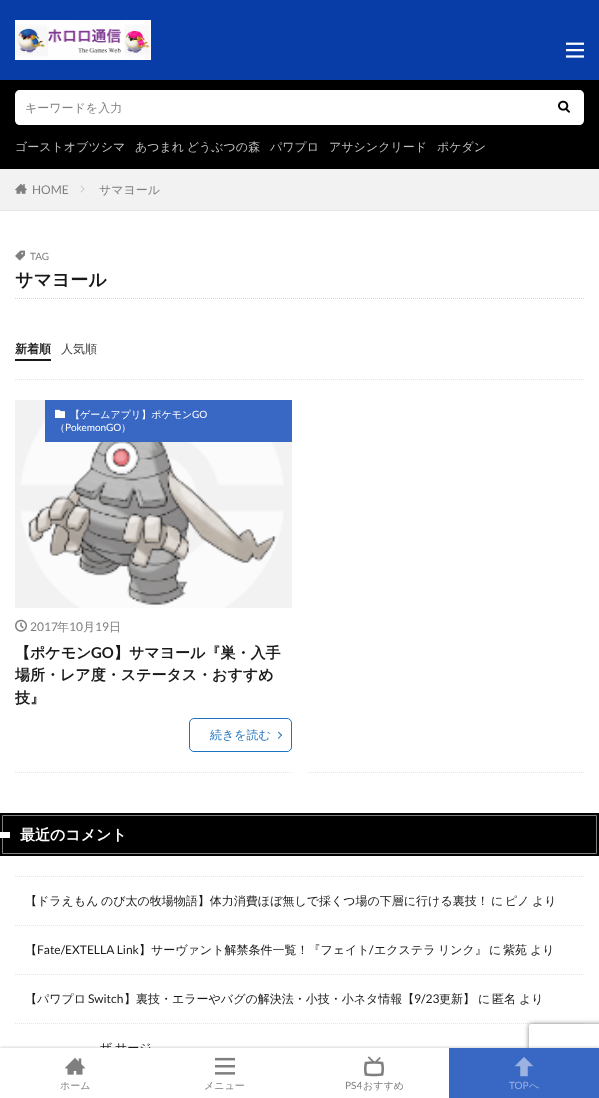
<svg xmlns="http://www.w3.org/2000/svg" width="599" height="1098">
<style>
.a{font:500 12px WenQuanYi Zen Hei;fill:#7f7f7f}
.b{font:500 12px WenQuanYi Zen Hei;fill:#bfbfbf}
.c{font:12px Lato;fill:#7f7f7f}
.d{font:10px Lato;fill:#7f7f7f}
.e{font:bold 18px WenQuanYi Zen Hei;fill:#191919}
.f{font:bold 12px WenQuanYi Zen Hei;fill:#191919}
.g{font:500 12px WenQuanYi Zen Hei;fill:#3f3f3f}
.h{font:500 10px WenQuanYi Zen Hei;fill:#fff}
.i{font:10px Lato;fill:#fff}
.j{font:bold 15px WenQuanYi Zen Hei;fill:#191919}
.k{font:bold 15px Lato;fill:#191919}
.l{font:500 12px WenQuanYi Zen Hei;fill:#1e73be}
.m{font:bold 15px WenQuanYi Zen Hei;fill:#fff}
.n{font:500 12px WenQuanYi Zen Hei;fill:#191919}
.o{font:12px Lato;fill:#191919}
.p{font:500 10px WenQuanYi Zen Hei;fill:#7f7f7f}
.q{font:10px Lato;fill:#9cb3e2}
.r{font:500 10px WenQuanYi Zen Hei;fill:#9cb3e2}
</style>
<defs>
<clipPath id="clip1"><path d="M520 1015h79v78h-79zm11 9h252c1 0 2 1 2 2v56c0 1-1 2-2 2h-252c-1 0-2-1-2-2v-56c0-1 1-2 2-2z" clip-rule="evenodd"/></clipPath>
</defs>
<rect width="100%" height="100%" fill="#fff"/>
<path fill="#083da8" d="M0 0h599v80H0z"/>
<image href="1.png" x="15" y="20" width="136" height="40"/>
<image href="2.png" x="566" y="42" width="18" height="16"/>
<path fill="#000" d="M0 80h599v89H0z"/>
<path fill="#fff" d="M20 90h524v35h-524c-3 0-5-2-5-5v-25c0-3 2-5 5-5z"/>
<path fill="#fff" d="M544 90h35c3 0 5 2 5 5v25c0 3-2 5-5 5h-35z"/>
<image href="3.png" x="558" y="100" width="12" height="13"/>
<path fill="#f2f2f2" d="M0 169h599v41H0z"/>
<path fill="#e6e6e6" d="M0 210h599v1H0z"/>
<image href="4.png" x="15" y="183" width="12" height="11"/>
<path fill="#bfbfbf" d="M81 185.5l3.5 3.5l-.5 .5l-3.5-3.5z"/>
<path fill="#bfbfbf" d="M84 188.5l.5 .5l-3.5 3.5l-.5-.5z"/>
<image href="5.png" x="15" y="250" width="10" height="11"/>
<path fill="none" stroke="#d8d8d8" stroke-dasharray="1 1" d="M15 298.5h569"/>
<path fill="none" stroke="#e6e6e6" stroke-dasharray="1 1" d="M15 379.5h569"/>
<path fill="#191919" d="M15 359h36v2H15z"/>
<path fill="none" stroke="#e6e6e6" stroke-dasharray="1 1" d="M15 772.5h277"/>
<image href="6.png" x="15" y="400" width="277" height="208"/>
<path fill="#3867c4" d="M45 400h247v42H45z"/>
<image href="7.png" x="55" y="409" width="10" height="9"/>
<image href="8.png" x="15" y="619" width="12" height="13"/>
<rect fill="none" stroke="#1e73be" x="189.5" y="718.5" width="102" height="33" rx="4.5"/>
<path fill="#1e73be" d="M278.5 731.5l3.5 3.5l-.5 1l-3.5-3.5z"/>
<path fill="#1e73be" d="M281.5 734.5l.5 .5l-3.5 4l-.5-1z"/>
<path fill="none" stroke="#e6e6e6" stroke-dasharray="1 1" d="M307 772.5h277"/>
<path fill="#000" d="M0 813h599v43H0z"/>
<path fill="none" stroke="#808080" d="M2.5 815.5h594v38H2.5z"/>
<path fill="#fff" d="M0 832h10v6H0z"/>
<path fill="none" stroke="#e6e6e6" stroke-dasharray="1 1" d="M15 876.5h569"/>
<path fill="none" stroke="#e6e6e6" stroke-dasharray="1 1" d="M15 925.5h569"/>
<path fill="none" stroke="#e6e6e6" stroke-dasharray="1 1" d="M15 974.5h569"/>
<path fill="none" stroke="#e6e6e6" stroke-dasharray="1 1" d="M15 1023.5h569"/>
<path fill="#00000026" filter="blur(1px)" d="M0 1047h599v50H0z"/>
<g clip-path="url(#clip1)">
<rect fill="#808080" filter="blur(2.5px)" x="529" y="1024" width="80" height="60" rx="2"/>
</g>
<path fill="#3867c4" d="M449 1048h150v50H449z"/>
<image href="12.png" x="514" y="1057" width="20" height="20"/>
<text class="a" x="25" y="112">キーワードを入力</text>
<text class="b" x="15" y="151">ゴーストオブツシマ</text>
<text class="b" x="135" y="151" word-spacing="-1">あつまれ どうぶつの森</text>
<text class="b" x="270" y="151">パワプロ</text>
<text class="b" x="329" y="151">アサシンクリード</text>
<text class="b" x="437" y="151">ポケダン</text>
<text class="c" x="32" y="194">HOME</text>
<text class="a" x="99" y="194">サマヨール</text>
<text class="d" x="30" y="260">TAG</text>
<text class="e" x="15" y="286">サマヨール</text>
<text class="f" x="15" y="353">新着順</text>
<text class="g" x="61" y="353">人気順</text>
<text class="h" x="70" y="418">【ゲームアプリ】ポケモン</text>
<text class="i" x="192" y="418">GO</text>
<text class="h" x="55" y="431">（</text>
<text class="i" x="65" y="431">PokemonGO</text>
<text class="h" x="121" y="431">）</text>
<text class="c" x="30" y="631">2017</text>
<text class="a" x="57" y="631">年</text>
<text class="c" x="69" y="631">10</text>
<text class="a" x="83" y="631">月</text>
<text class="c" x="95" y="631">19</text>
<text class="a" x="109" y="631">日</text>
<text class="j" x="15" y="658">【ポケモン</text>
<text class="k" x="91" y="658">GO</text>
<text class="j" x="114" y="658">】サマヨール『巣・入手</text>
<text class="j" x="15" y="680">場所・レア度・ステータス・おすすめ</text>
<text class="j" x="15" y="703">技』</text>
<text class="l" x="210" y="739">続きを読む</text>
<text class="m" x="20" y="840">最近のコメント</text>
<text class="n" x="25" y="905" word-spacing="-1">【ドラえもん のび太の牧場物語】体力消費ほぼ無しで採くつ場の下層に行ける裏技！</text>
<text class="n" x="491" y="905">に</text>
<text class="n" x="505" y="905">ピノ</text>
<text class="n" x="532" y="905">より</text>
<text class="n" x="25" y="954">【</text>
<text class="o" x="37" y="954">Fate/EXTELLA Link</text>
<text class="n" x="139" y="954">】サーヴァント解禁条件一覧！『フェイト</text>
<text class="o" x="369" y="954">/</text>
<text class="n" x="374" y="954">エクステラ</text>
<text class="n" x="438" y="954">リンク』</text>
<text class="n" x="489" y="954">に</text>
<text class="n" x="503" y="954">紫苑</text>
<text class="n" x="530" y="954">より</text>
<text class="n" x="25" y="1003">【パワプロ</text>
<text class="o" x="88" y="1003">Switch</text>
<text class="n" x="124" y="1003">】裏技・エラーやバグの解決法・小技・小ネタ情報【</text>
<text class="o" x="414" y="1003">9/23</text>
<text class="n" x="439" y="1003">更新】</text>
<text class="n" x="478" y="1003">に</text>
<text class="n" x="492" y="1003">匿名</text>
<text class="n" x="519" y="1003">より</text>
<text class="n" x="100" y="1052">ザ</text>
<text class="n" x="115" y="1052">サージ</text>
<path fill="#fff" d="M0 1048h449v50H0z"/>
<image href="9.png" x="65" y="1058" width="20" height="17"/>
<text class="p" x="60" y="1089">ホーム</text>
<image href="10.png" x="215" y="1057" width="20" height="18"/>
<text class="p" x="204" y="1089">メニュー</text>
<image href="11.png" x="364" y="1056" width="20" height="21"/>
<text class="d" x="345" y="1089">PS4</text>
<text class="p" x="363" y="1089">おすすめ</text>
<text class="q" x="509" y="1089">TOP</text>
<text class="r" x="529" y="1089">へ</text>
</svg>
